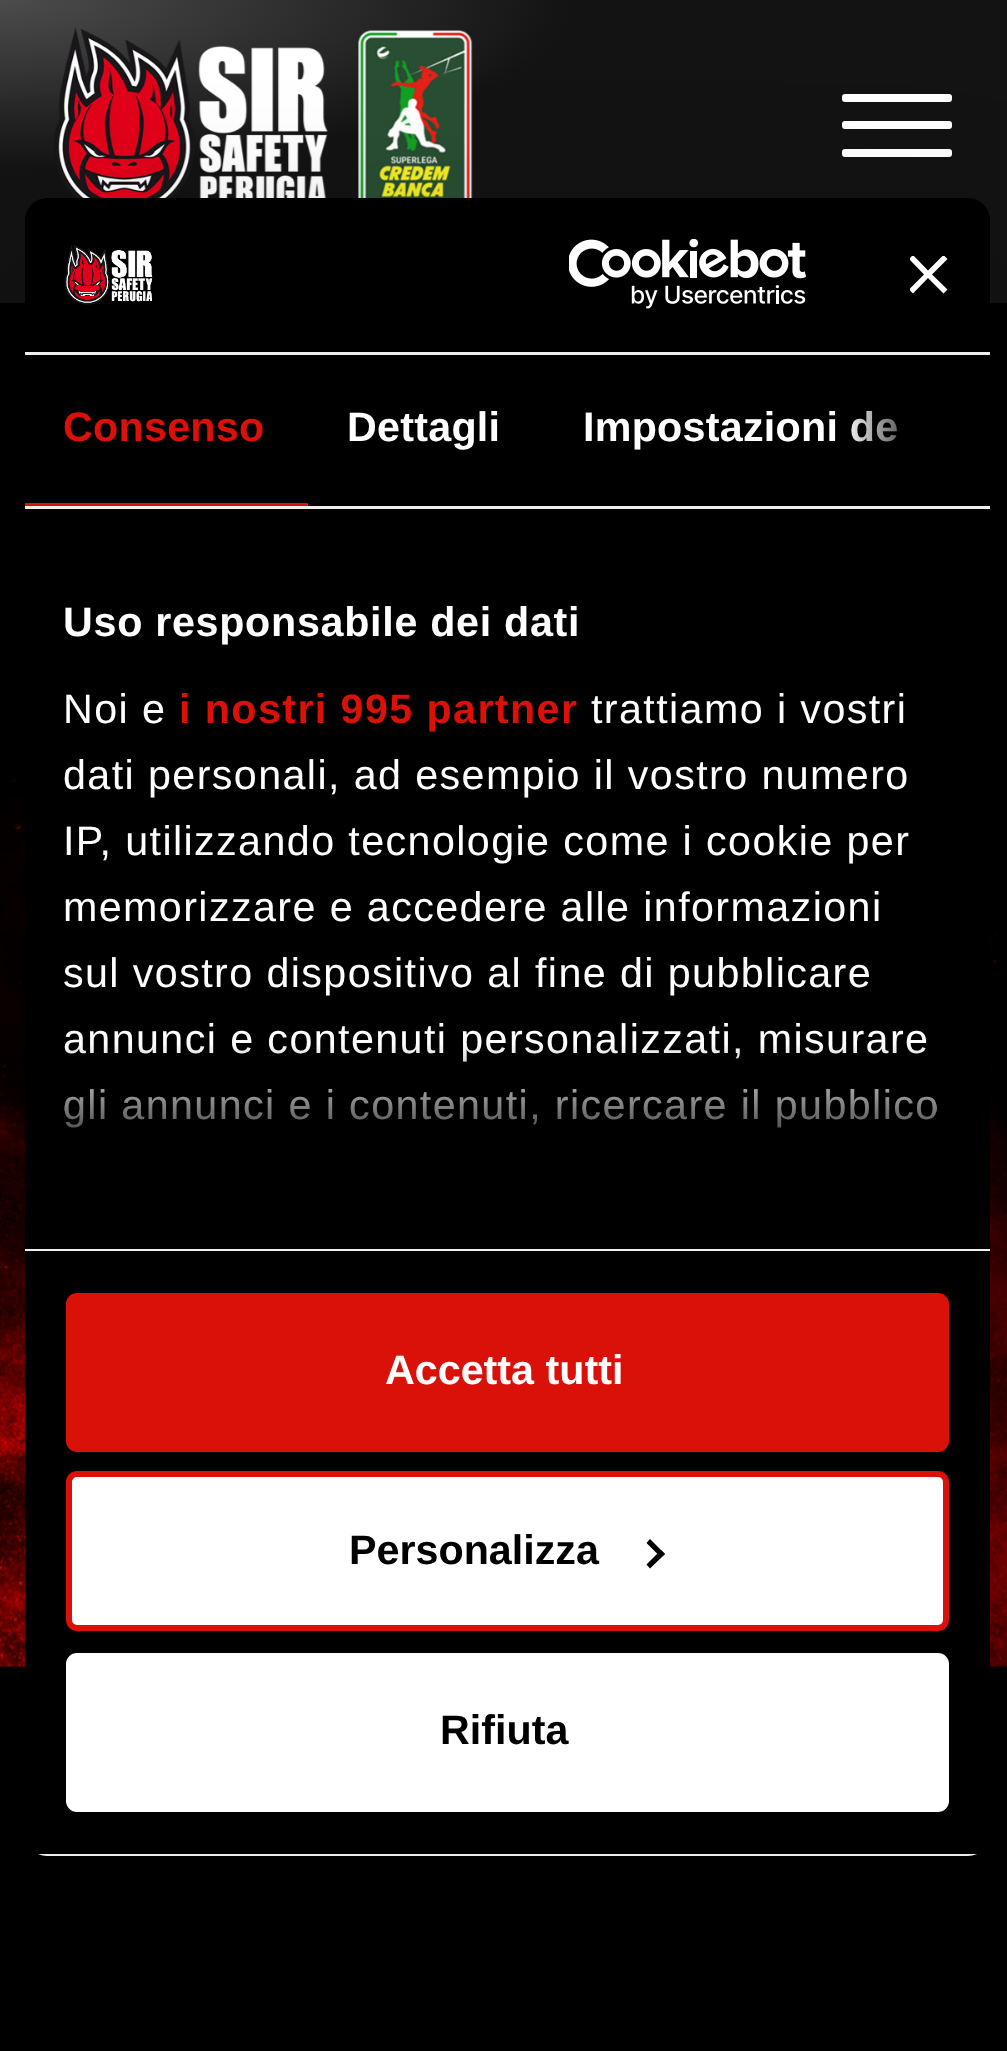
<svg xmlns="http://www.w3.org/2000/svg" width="1007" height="2051">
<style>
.a{font:bold 41.25px Liberation Sans;letter-spacing:0.25px;fill:#da1108}
.b{font:bold 41.25px Liberation Sans;letter-spacing:0.25px;fill:#fff}
.c{font:bold 41.25px Liberation Sans;letter-spacing:0.7px;fill:#fff}
.d{font:41.25px Liberation Sans;letter-spacing:1.4px;fill:#fff}
.e{font:bold 41.25px Liberation Sans;letter-spacing:1.4px;fill:#da1108}
.f{font:bold 41.25px Liberation Sans;fill:#fff}
.g{font:bold 41.25px Liberation Sans;fill:#000}
</style>
<defs>
<radialGradient id="g1" gradientUnits="userSpaceOnUse" cx="0" cy="0" r="1" gradientTransform="matrix(1427 0 0 428 0 0)"><stop offset="0" stop-color="#4c4c4c"/><stop offset="0.4" stop-color="#131313"/></radialGradient>
<clipPath id="clip1"><path d="M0 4h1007v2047h-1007zm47 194h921c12 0 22 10 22 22v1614c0 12-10 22-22 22h-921c-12 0-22-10-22-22v-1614c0-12 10-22 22-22z" clip-rule="evenodd"/></clipPath>
<clipPath id="clip2"><path d="M910 256h39v38H910z"/></clipPath>
<clipPath id="clip3"><rect x="25" y="198" width="965" height="1658" rx="22"/></clipPath>
<linearGradient id="g2" gradientUnits="userSpaceOnUse" x1="989" y1="430" x2="843" y2="430"><stop offset="0" stop-color="#000"/><stop offset="0.5" stop-color="#000" stop-opacity="0.8"/><stop offset="1" stop-color="#000" stop-opacity="0"/></linearGradient>
<linearGradient id="g3" gradientUnits="userSpaceOnUse" x1="488" y1="1248" x2="488" y2="1042"><stop offset="0" stop-color="#000"/><stop offset="0.5" stop-color="#000" stop-opacity="0.8"/><stop offset="1" stop-color="#000" stop-opacity="0"/></linearGradient>
</defs>
<rect width="100%" height="100%" fill="#000"/>
<path fill="url(#g1)" d="M0 0h1007v303H0z"/>
<image href="1.png" x="54" y="27" width="274" height="171"/>
<image href="2.png" x="358" y="30" width="115" height="168"/>
<rect fill="#fff" x="842" y="149" width="110" height="8" rx="3"/>
<rect fill="#fff" x="842" y="94" width="110" height="8" rx="3"/>
<rect fill="#fff" x="842" y="121" width="110" height="8" rx="3"/>
<image href="5.png" x="0" y="1666" width="1007" height="1"/>
<image href="6.png" x="0" y="681" width="1007" height="986"/>
<g clip-path="url(#clip1)">
<rect fill="#0000004d" filter="blur(93.5px)" x="25" y="286" width="965" height="1658" rx="22"/>
</g>
<rect fill="#000" x="25" y="198" width="965" height="1658" rx="22"/>
<path fill="#eee" d="M25 352h965v3H25z"/>
<image href="3.png" x="64" y="244" width="89" height="61"/>
<image href="4.png" x="569" y="239" width="238" height="70"/>
<g clip-path="url(#clip2)">
<path fill="#fff" d="M947.5 259l-4-4l-15.5 15.5l-15-15.5l-4 4l15 15.5l-15 15l4 4l15-15.5l15.5 15.5l4-4l-15.5-15z"/>
</g>
<path fill="#eee" d="M25 506h965v3H25z"/>
<path fill="#da1108" d="M25 503h283v3H25z"/>
<path fill="#eee" d="M25 1249h965v2H25z"/>
<g clip-path="url(#clip3)">
<path fill="#eee" d="M38 1854h939v2H38z"/>
</g>
<rect fill="#da1108" stroke="#da1108" stroke-width="6" x="69" y="1296" width="877" height="153" rx="8"/>
<rect fill="#fff" stroke="#da1108" stroke-width="6" x="69" y="1474" width="877" height="154" rx="8"/>
<path fill="#000" d="M650 1539l15 15l-4 3.5l-14.5-14.5z"/>
<path fill="#000" d="M661 1550l4 4l-15 14.5l-3.5-4z"/>
<rect fill="#fff" stroke="#fff" stroke-width="6" x="69" y="1656" width="877" height="153" rx="8"/>
<text class="a" x="63" y="441">Consenso</text>
<text class="b" x="347" y="441">Dettagli</text>
<text class="b" x="583" y="441">Impostazioni de</text>
<path fill="url(#g2)" d="M852 411h46v31H852z"/>
<text class="c" x="63" y="636">Uso responsabile dei dati</text>
<text class="d" x="63" y="723">Noi e</text>
<text class="e" x="179" y="723">i nostri 995 partner</text>
<text class="d" x="591" y="723">trattiamo i vostri</text>
<text class="d" x="63" y="789">dati personali, ad esempio il vostro numero</text>
<text class="d" x="63" y="855">IP, utilizzando tecnologie come i cookie per</text>
<text class="d" x="63" y="921">memorizzare e accedere alle informazioni</text>
<text class="d" x="63" y="987">sul vostro dispositivo al fine di pubblicare</text>
<text class="d" x="63" y="1053">annunci e contenuti personalizzati, misurare</text>
<text class="d" x="63" y="1119">gli annunci e i contenuti, ricercare il pubblico</text>
<path fill="url(#g3)" d="M65 1045h871v83H65z"/>
<text class="f" x="385" y="1384">Accetta tutti</text>
<text class="g" x="349" y="1564">Personalizza</text>
<text class="g" x="440" y="1744">Rifiuta</text>
</svg>
